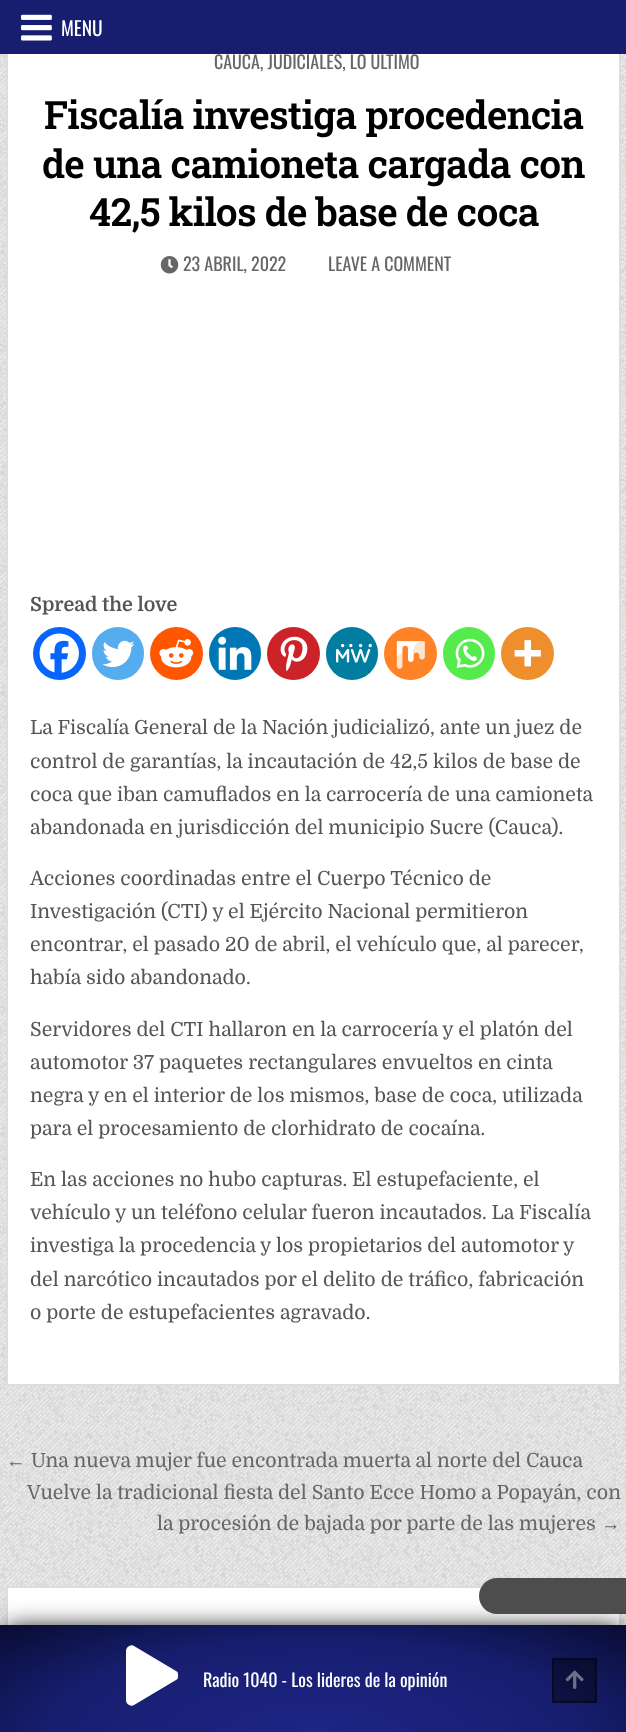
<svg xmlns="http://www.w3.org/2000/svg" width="626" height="1732">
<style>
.a{font:18px Oswald;fill:#666}
.b{font:19.5px Oswald;fill:#fff}
.c{font:600 39px Roboto Slab;letter-spacing:-0.75px;fill:#000}
.d{font:bold 19.5px Domine;fill:#555}
.e{font:19.5px Domine;fill:#555}
.f{font:19.5px Liberation Sans;fill:#666}
.g{font:19.5px Domine;fill:#666}
.h{font:18px Oswald;fill:#fff}
</style>
<defs>
<radialGradient id="g1" gradientUnits="userSpaceOnUse" cx="0" cy="0" r="1" gradientTransform="matrix(443 0 0 153 314 1733)"><stop offset="0" stop-color="#1d2586"/><stop offset="0.6" stop-color="#171e6f"/><stop offset="1" stop-color="#080c32"/></radialGradient>
</defs>
<rect width="100%" height="100%" fill="#fff"/>
<image href="1.png" x="0" y="54" width="626" height="1571"/>
<path fill="#fff" d="M8 54h611v1330H8z"/>
<path fill="none" stroke="#ddd" stroke-width="2" d="M7 25h613v1360H7z"/>
<image href="3.png" x="160" y="256" width="19" height="18"/>
<circle fill="#0765fe" cx="59.5" cy="653.5" r="26.5"/>
<image href="4.png" x="39" y="633" width="40" height="40"/>
<rect fill="#55acee" x="92" y="627" width="52" height="53" rx="26"/>
<image href="5.png" x="102" y="640" width="33" height="28"/>
<circle fill="#ff5700" cx="176.5" cy="653.5" r="26.5"/>
<image href="6.png" x="159" y="639" width="35" height="29"/>
<rect fill="#0077b5" x="209" y="627" width="52" height="53" rx="26"/>
<image href="7.png" x="218" y="636" width="34" height="34"/>
<circle fill="#cc2329" cx="293.5" cy="653.5" r="26.5"/>
<image href="8.png" x="280" y="636" width="28" height="36"/>
<rect fill="#007da1" x="326" y="627" width="52" height="53" rx="26"/>
<image href="9.png" x="336" y="643" width="36" height="20"/>
<circle fill="#ff8226" cx="410.5" cy="653.5" r="26.5"/>
<image href="10.png" x="396" y="641" width="29" height="28"/>
<rect fill="#55eb4c" x="443" y="627" width="52" height="53" rx="26"/>
<image href="11.png" x="455" y="638" width="30" height="30"/>
<circle fill="#ee8e2d" cx="527.5" cy="653.5" r="26.5"/>
<image href="12.png" x="514" y="640" width="27" height="27"/>
<path fill="#fff" d="M8 1588h611v37H8z"/>
<path fill="none" stroke="#ddd" stroke-width="2" d="M7 1587h613v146H7z"/>
<path fill="#000" filter="blur(12px)" d="M6 1628h615v96H6z"/>
<path fill="#4d4d4d" d="M497 1578h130v36h-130c-10 0-18-8-18-18c0-10 8-18 18-18z"/>
<path fill="url(#g1)" d="M0 1625h626v107H0z"/>
<path fill="#fff" d="M176 1671c2 1 2 2 2 5c0 2 0 3-2 4l-42 25c-1 1-3 1-5 0c-2-1-3-3-3-5v-49c0-2 1-4 3-5c2-1 4-1 5 0z"/>
<path fill="#00000066" d="M552 1658h45v45H552z"/>
<path fill="none" stroke="#00000066" stroke-width="2" d="M553 1659h43v43H553z"/>
<image href="13.png" x="565" y="1670" width="19" height="19"/>
<text class="a" x="214" y="69">CAUCA, JUDICIALES, LO ÚLTIMO</text>
<path fill="#171e6f" d="M0 0h626v54H0z"/>
<text class="b" x="61" y="36">MENU</text>
<image href="2.png" x="21" y="14" width="31" height="27"/>
<text class="c" x="44" y="129">Fiscalía investiga procedencia</text>
<text class="c" x="42" y="178">de una camioneta cargada con</text>
<text class="c" x="89" y="226">42,5 kilos de base de coca</text>
<text class="a" x="183" y="271">23 ABRIL, 2022</text>
<text class="a" x="328" y="271">LEAVE A COMMENT</text>
<text class="d" x="30" y="611">Spread the love</text>
<text class="e" x="30" y="734">La Fiscalía General de la Nación judicializó, ante un juez de</text>
<text class="e" x="30" y="768">control de garantías, la incautación de 42,5 kilos de base de</text>
<text class="e" x="30" y="801">coca que iban camuflados en la carrocería de una camioneta</text>
<text class="e" x="30" y="834">abandonada en jurisdicción del municipio Sucre (Cauca).</text>
<text class="e" x="30" y="885">Acciones coordinadas entre el Cuerpo Técnico de</text>
<text class="e" x="30" y="918">Investigación (CTI) y el Ejército Nacional permitieron</text>
<text class="e" x="30" y="951">encontrar, el pasado 20 de abril, el vehículo que, al parecer,</text>
<text class="e" x="30" y="984">había sido abandonado.</text>
<text class="e" x="30" y="1036">Servidores del CTI hallaron en la carrocería y el platón del</text>
<text class="e" x="30" y="1069">automotor 37 paquetes rectangulares envueltos en cinta</text>
<text class="e" x="30" y="1102">negra y en el interior de los mismos, base de coca, utilizada</text>
<text class="e" x="30" y="1135">para el procesamiento de clorhidrato de cocaína.</text>
<text class="e" x="30" y="1186">En las acciones no hubo capturas. El estupefaciente, el</text>
<text class="e" x="30" y="1219">vehículo y un teléfono celular fueron incautados. La Fiscalía</text>
<text class="e" x="30" y="1252">investiga la procedencia y los propietarios del automotor y</text>
<text class="e" x="30" y="1286">del narcótico incautados por el delito de tráfico, fabricación</text>
<text class="e" x="30" y="1319">o porte de estupefacientes agravado.</text>
<text class="f" x="6" y="1467">←</text>
<text class="g" x="31" y="1467">Una nueva mujer fue encontrada muerta al norte del Cauca</text>
<text class="g" x="27" y="1499">Vuelve la tradicional fiesta del Santo Ecce Homo a Popayán, con</text>
<text class="g" x="157" y="1530">la procesión de bajada por parte de las mujeres</text>
<text class="f" x="601" y="1530">→</text>
<text class="h" x="203" y="1687">Radio 1040 - Los lideres de la opinión</text>
</svg>
